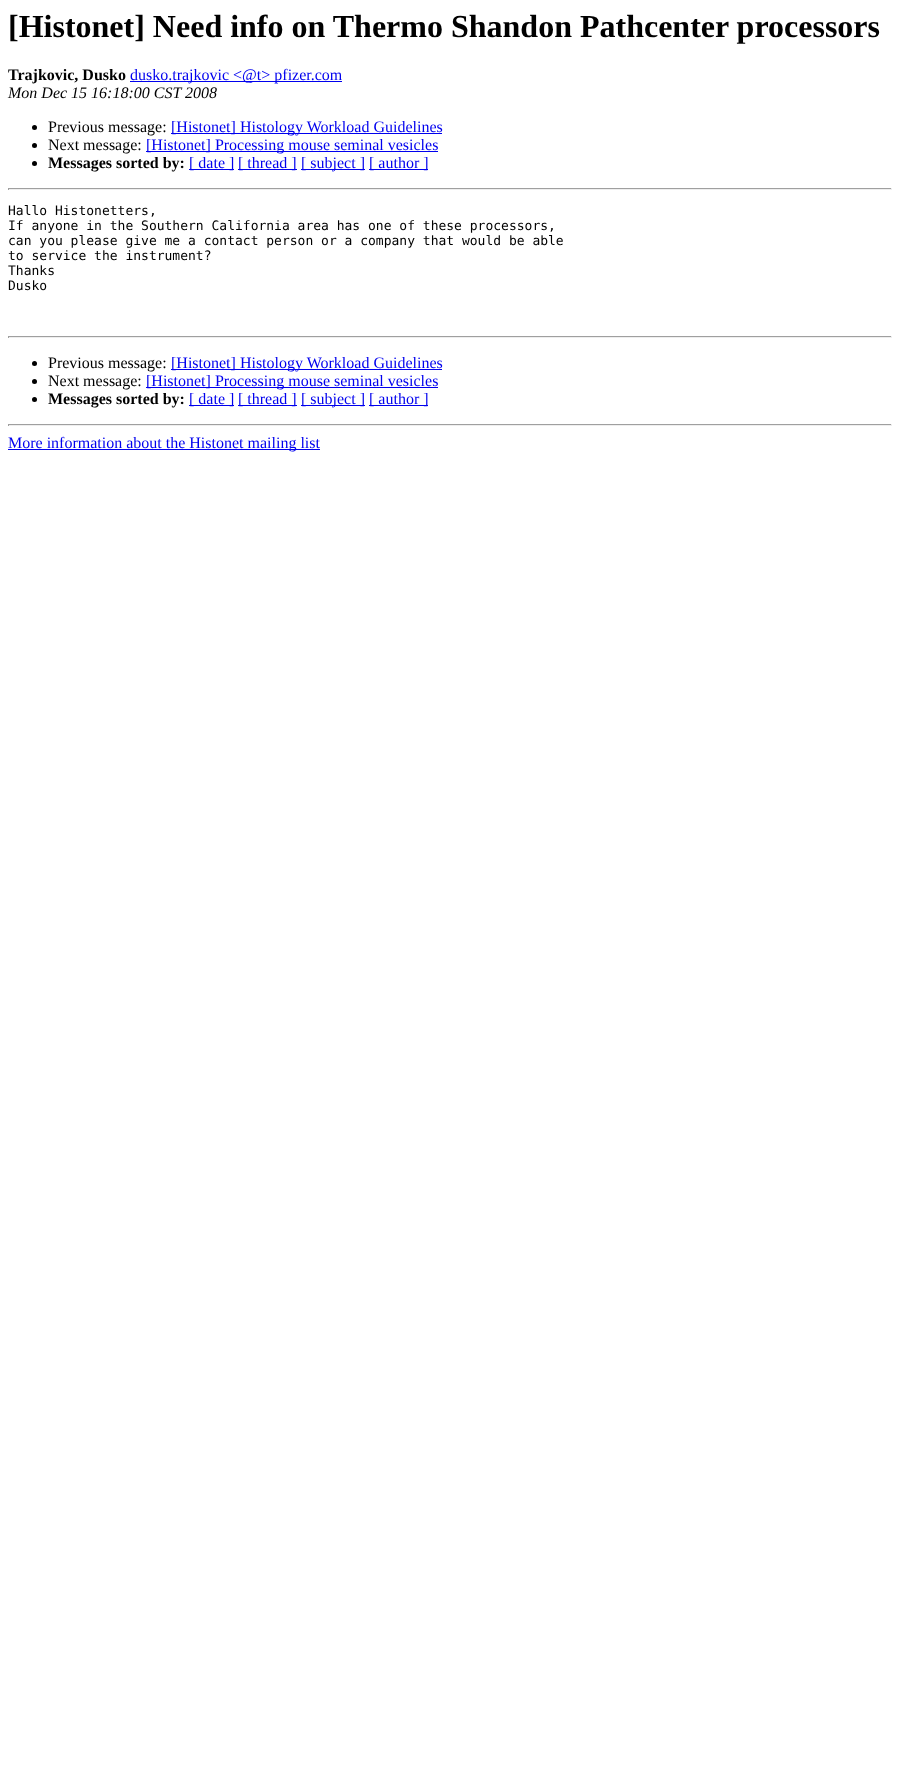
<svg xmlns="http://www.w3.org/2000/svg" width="900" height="1786">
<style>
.a{font:bold 32px Liberation Serif;fill:#000}
.b{font:bold 16px Liberation Serif;fill:#000}
.c{font:16px Liberation Serif;fill:#00e}
.d{font:italic 16px Liberation Serif;fill:#000}
.e{font:16px Liberation Serif;fill:#000}
.f{font:13px DejaVu Sans Mono;fill:#000}
</style>
<rect width="100%" height="100%" fill="#fff"/>
<path fill="#00e" d="M130 81h212v1H130z"/>
<circle fill="#000" cx="34.5" cy="127.5" r="2.5"/>
<path fill="#00e" d="M171 133h271v1H171z"/>
<circle fill="#000" cx="34.5" cy="145.5" r="2.5"/>
<path fill="#00e" d="M146 151h292v1H146z"/>
<circle fill="#000" cx="34.5" cy="163.5" r="2.5"/>
<path fill="#00e" d="M189 169h45v1H189z"/>
<path fill="#00e" d="M238 169h59v1H238z"/>
<path fill="#00e" d="M301 169h64v1H301z"/>
<path fill="#00e" d="M369 169h59v1H369z"/>
<path fill="#9f9f9f" d="M8 188h884v1H8z"/>
<path fill="#eee" d="M891 188h1v2H891z"/>
<path fill="#eee" d="M8 189h884v1H8z"/>
<path fill="#9f9f9f" d="M8 188h1v2H8z"/>
<path fill="#9f9f9f" d="M8 336h884v1H8z"/>
<path fill="#eee" d="M891 336h1v2H891z"/>
<path fill="#eee" d="M8 337h884v1H8z"/>
<path fill="#9f9f9f" d="M8 336h1v2H8z"/>
<circle fill="#000" cx="34.5" cy="363.5" r="2.5"/>
<path fill="#00e" d="M171 369h271v1H171z"/>
<circle fill="#000" cx="34.5" cy="381.5" r="2.5"/>
<path fill="#00e" d="M146 387h292v1H146z"/>
<circle fill="#000" cx="34.5" cy="399.5" r="2.5"/>
<path fill="#00e" d="M189 405h45v1H189z"/>
<path fill="#00e" d="M238 405h59v1H238z"/>
<path fill="#00e" d="M301 405h64v1H301z"/>
<path fill="#00e" d="M369 405h59v1H369z"/>
<path fill="#9f9f9f" d="M8 424h884v1H8z"/>
<path fill="#eee" d="M891 424h1v2H891z"/>
<path fill="#eee" d="M8 425h884v1H8z"/>
<path fill="#9f9f9f" d="M8 424h1v2H8z"/>
<path fill="#00e" d="M8 449h312v1H8z"/>
<text class="a" x="8" y="37">[Histonet] Need info on Thermo Shandon Pathcenter processors</text>
<text class="b" x="8" y="80">Trajkovic, Dusko</text>
<text class="c" x="130" y="80">dusko.trajkovic &lt;@t&gt; pfizer.com</text>
<text class="d" x="8" y="98">Mon Dec 15 16:18:00 CST 2008</text>
<text class="e" x="48" y="132">Previous message:</text>
<text class="c" x="171" y="132">[Histonet] Histology Workload Guidelines</text>
<text class="e" x="48" y="150">Next message:</text>
<text class="c" x="146" y="150">[Histonet] Processing mouse seminal vesicles</text>
<text class="b" x="48" y="168">Messages sorted by:</text>
<text class="c" x="189" y="168">[ date ]</text>
<text class="c" x="238" y="168">[ thread ]</text>
<text class="c" x="301" y="168">[ subject ]</text>
<text class="c" x="369" y="168">[ author ]</text>
<text class="f" x="8" y="215">Hallo Histonetters,</text>
<text class="f" x="8" y="230">If anyone in the Southern California area has one of these processors,</text>
<text class="f" x="8" y="245">can you please give me a contact person or a company that would be able</text>
<text class="f" x="8" y="260">to service the instrument?</text>
<text class="f" x="8" y="275">Thanks</text>
<text class="f" x="8" y="290">Dusko</text>
<text class="e" x="48" y="368">Previous message:</text>
<text class="c" x="171" y="368">[Histonet] Histology Workload Guidelines</text>
<text class="e" x="48" y="386">Next message:</text>
<text class="c" x="146" y="386">[Histonet] Processing mouse seminal vesicles</text>
<text class="b" x="48" y="404">Messages sorted by:</text>
<text class="c" x="189" y="404">[ date ]</text>
<text class="c" x="238" y="404">[ thread ]</text>
<text class="c" x="301" y="404">[ subject ]</text>
<text class="c" x="369" y="404">[ author ]</text>
<text class="c" x="8" y="448">More information about the Histonet mailing list</text>
</svg>
